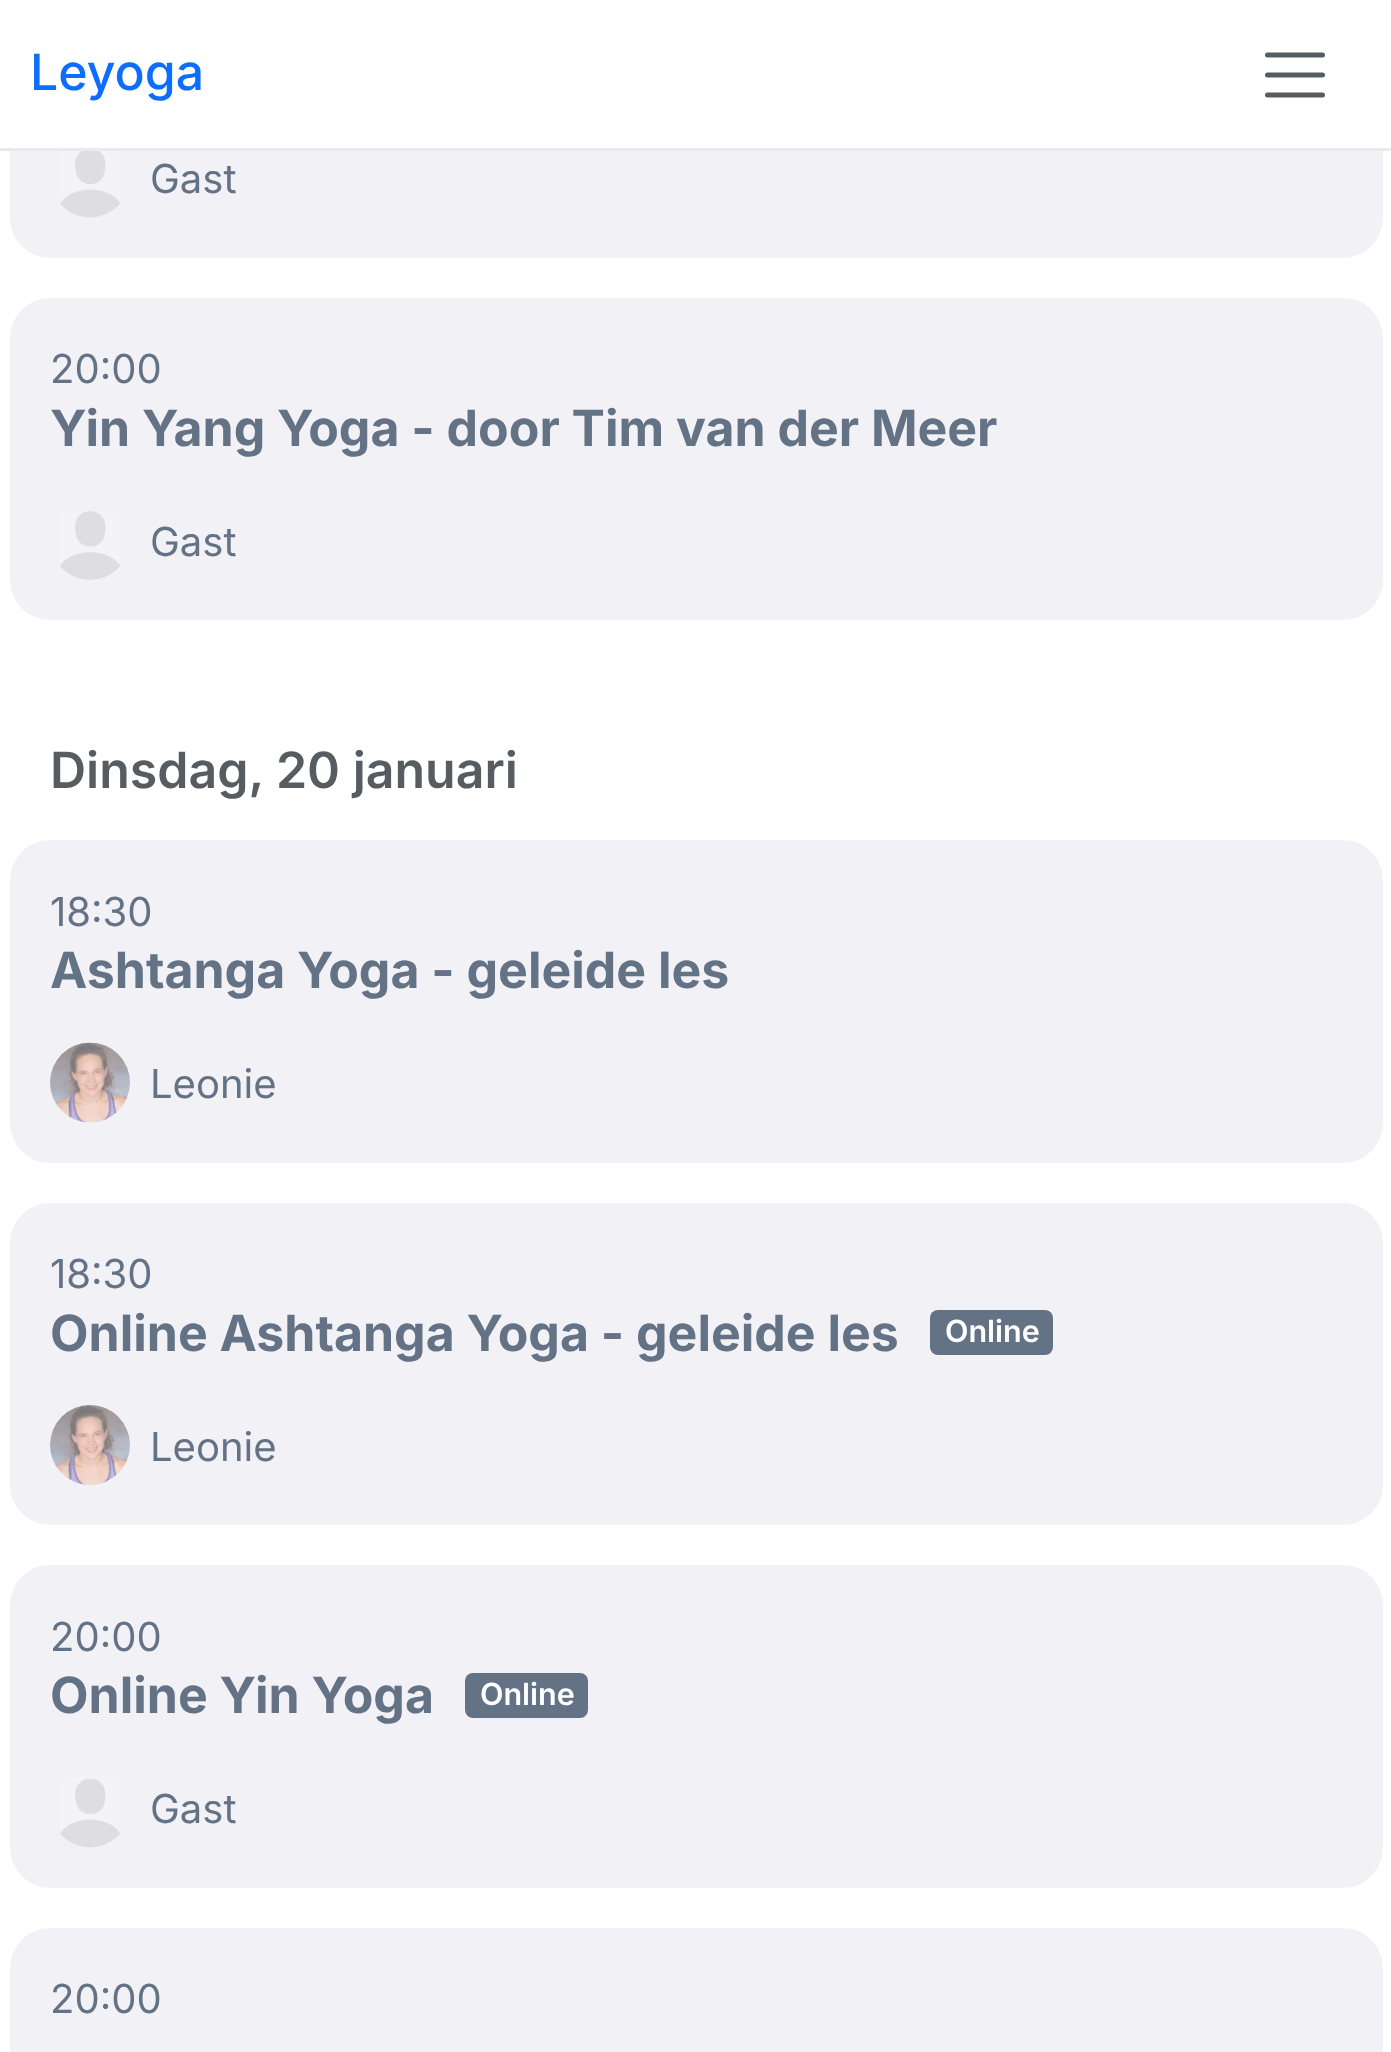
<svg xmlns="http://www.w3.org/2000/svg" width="1391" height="2052">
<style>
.a{font:500 50px Inter;fill:#0d6efd}
.b{font:40px Inter;fill:#647286}
.c{font:bold 50px Inter;fill:#647286}
.d{font:600 50px Inter;fill:#575c61}
.e{font:600 30.5px Inter;fill:#fff}
</style>
<rect width="100%" height="100%" fill="#fff"/>
<rect fill="#f2f1f6" x="10" y="-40" width="1373" height="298" rx="40"/>
<path fill="#fff" d="M10 0h1373v148H10z"/>
<path fill="#e8eaed" d="M0 148h1391v3H0z"/>
<path fill="none" stroke="#575c61" stroke-width="5" stroke-linecap="round" d="M1267.5 55h55m-55 20h55m-55 20h55"/>
<image href="1.png" x="60" y="151" width="60" height="67"/>
<rect fill="#f2f1f6" x="10" y="298" width="1373" height="322" rx="40"/>
<image href="2.png" x="60" y="511" width="60" height="69"/>
<rect fill="#f2f1f6" x="10" y="840" width="1373" height="323" rx="40"/>
<image href="3.png" x="50" y="1042" width="80" height="81"/>
<rect fill="#f2f1f6" x="10" y="1203" width="1373" height="322" rx="40"/>
<rect fill="#647286" x="930" y="1310" width="123" height="45" rx="8"/>
<image href="4.png" x="50" y="1405" width="80" height="80"/>
<rect fill="#f2f1f6" x="10" y="1565" width="1373" height="323" rx="40"/>
<rect fill="#647286" x="465" y="1673" width="123" height="45" rx="8"/>
<image href="5.png" x="60" y="1778" width="60" height="70"/>
<rect fill="#f2f1f6" x="10" y="1928" width="1373" height="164" rx="40"/>
<text class="a" x="30" y="90">Leyoga</text>
<text class="b" x="150" y="193">Gast</text>
<text class="b" x="50" y="383">20:00</text>
<text class="c" x="50" y="446">Yin Yang Yoga - door Tim van der Meer</text>
<text class="b" x="150" y="556">Gast</text>
<text class="d" x="50" y="788">Dinsdag, 20 januari</text>
<text class="b" x="50" y="926">18:30</text>
<text class="c" x="50" y="988">Ashtanga Yoga - geleide les</text>
<text class="b" x="150" y="1098">Leonie</text>
<text class="b" x="50" y="1288">18:30</text>
<text class="c" x="50" y="1351">Online Ashtanga Yoga - geleide les</text>
<text class="e" x="945" y="1342">Online</text>
<text class="b" x="150" y="1461">Leonie</text>
<text class="b" x="50" y="1651">20:00</text>
<text class="c" x="50" y="1713">Online Yin Yoga</text>
<text class="e" x="480" y="1705">Online</text>
<text class="b" x="150" y="1823">Gast</text>
<text class="b" x="50" y="2013">20:00</text>
</svg>
